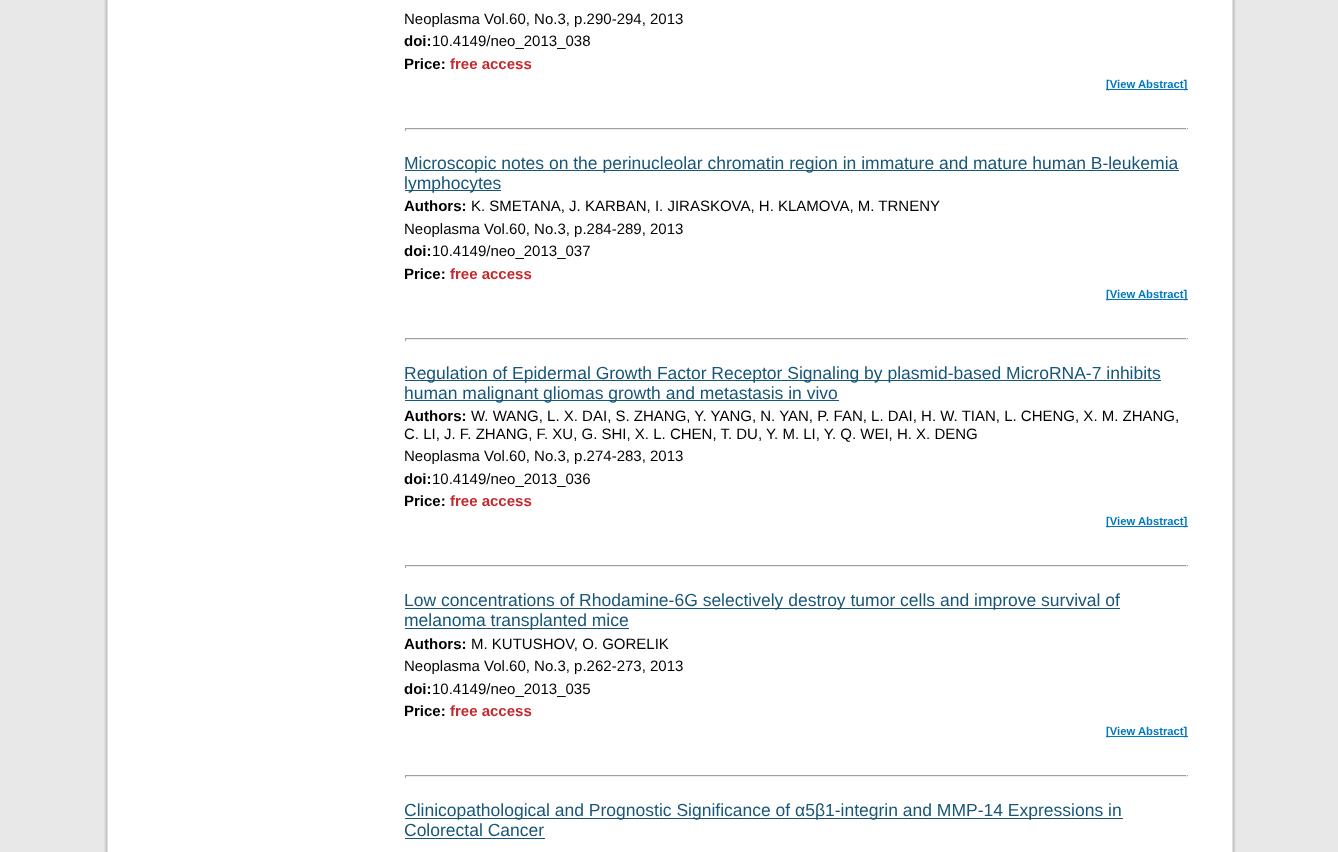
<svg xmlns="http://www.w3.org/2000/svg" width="1338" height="852">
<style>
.a{font:15px Liberation Sans;fill:#000}
.b{font:bold 15px Liberation Sans;fill:#000}
.c{font:bold 15px Liberation Sans;fill:#c4292d}
.d{font:bold 11.25px Liberation Sans;fill:#0079bc}
.e{font:17.5px Liberation Sans;fill:#175678}
</style>
<rect width="100%" height="100%" fill="#e8e8e8"/>
<image href="1.png" x="104" y="0" width="1132" height="852"/>
<path fill="#0079bc" d="M1106 89h82v1H1106z"/>
<path fill="#9f9f9f" d="M405 128h783v1H405z"/>
<path fill="#eee" d="M1186 128h1v3H1186z"/>
<path fill="#eee" d="M405 129h783v1H405z"/>
<path fill="#9f9f9f" d="M405 128h1v3H405z"/>
<path fill="#175678" d="M405 170h774v1H405z"/>
<path fill="#175678" d="M405 190h96v1H405z"/>
<path fill="#0079bc" d="M1106 299h82v1H1106z"/>
<path fill="#9f9f9f" d="M405 338h783v1H405z"/>
<path fill="#eee" d="M1186 338h1v3H1186z"/>
<path fill="#eee" d="M405 339h783v1H405z"/>
<path fill="#9f9f9f" d="M405 338h1v3H405z"/>
<path fill="#175678" d="M405 380h756v1H405z"/>
<path fill="#175678" d="M405 400h434v1H405z"/>
<path fill="#0079bc" d="M1106 526h82v1H1106z"/>
<path fill="#9f9f9f" d="M405 565h783v1H405z"/>
<path fill="#eee" d="M1186 565h1v3H1186z"/>
<path fill="#eee" d="M405 566h783v1H405z"/>
<path fill="#9f9f9f" d="M405 565h1v3H405z"/>
<path fill="#175678" d="M405 608h715v1H405z"/>
<path fill="#175678" d="M405 628h224v1H405z"/>
<path fill="#0079bc" d="M1106 736h82v1H1106z"/>
<path fill="#9f9f9f" d="M405 775h783v1H405z"/>
<path fill="#eee" d="M1186 775h1v3H1186z"/>
<path fill="#eee" d="M405 776h783v1H405z"/>
<path fill="#9f9f9f" d="M405 775h1v3H405z"/>
<path fill="#175678" d="M405 818h718v1H405z"/>
<path fill="#175678" d="M405 838h140v1H405z"/>
<text class="a" x="404" y="24">Neoplasma Vol.60, No.3, p.290-294, 2013</text>
<text class="b" x="404" y="46">doi:</text>
<text class="a" x="432" y="46">10.4149/neo_2013_038</text>
<text class="b" x="404" y="69">Price:</text>
<text class="c" x="450" y="69">free access</text>
<text class="d" x="1106" y="88">[View Abstract]</text>
<text class="e" x="404" y="169">Microscopic notes on the perinucleolar chromatin region in immature and mature human B-leukemia</text>
<text class="e" x="404" y="189">lymphocytes</text>
<text class="b" x="404" y="211">Authors:</text>
<text class="a" x="471" y="211">K. SMETANA, J. KARBAN, I. JIRASKOVA, H. KLAMOVA, M. TRNENY</text>
<text class="a" x="404" y="234">Neoplasma Vol.60, No.3, p.284-289, 2013</text>
<text class="b" x="404" y="256">doi:</text>
<text class="a" x="432" y="256">10.4149/neo_2013_037</text>
<text class="b" x="404" y="279">Price:</text>
<text class="c" x="450" y="279">free access</text>
<text class="d" x="1106" y="298">[View Abstract]</text>
<text class="e" x="404" y="379">Regulation of Epidermal Growth Factor Receptor Signaling by plasmid-based MicroRNA-7 inhibits</text>
<text class="e" x="404" y="399">human malignant gliomas growth and metastasis in vivo</text>
<text class="b" x="404" y="421">Authors:</text>
<text class="a" x="471" y="421">W. WANG, L. X. DAI, S. ZHANG, Y. YANG, N. YAN, P. FAN, L. DAI, H. W. TIAN, L. CHENG, X. M. ZHANG,</text>
<text class="a" x="404" y="439">C. LI, J. F. ZHANG, F. XU, G. SHI, X. L. CHEN, T. DU, Y. M. LI, Y. Q. WEI, H. X. DENG</text>
<text class="a" x="404" y="461">Neoplasma Vol.60, No.3, p.274-283, 2013</text>
<text class="b" x="404" y="484">doi:</text>
<text class="a" x="432" y="484">10.4149/neo_2013_036</text>
<text class="b" x="404" y="506">Price:</text>
<text class="c" x="450" y="506">free access</text>
<text class="d" x="1106" y="525">[View Abstract]</text>
<text class="e" x="404" y="606">Low concentrations of Rhodamine-6G selectively destroy tumor cells and improve survival of</text>
<text class="e" x="404" y="626">melanoma transplanted mice</text>
<text class="b" x="404" y="649">Authors:</text>
<text class="a" x="471" y="649">M. KUTUSHOV, O. GORELIK</text>
<text class="a" x="404" y="671">Neoplasma Vol.60, No.3, p.262-273, 2013</text>
<text class="b" x="404" y="694">doi:</text>
<text class="a" x="432" y="694">10.4149/neo_2013_035</text>
<text class="b" x="404" y="716">Price:</text>
<text class="c" x="450" y="716">free access</text>
<text class="d" x="1106" y="735">[View Abstract]</text>
<text class="e" x="404" y="816">Clinicopathological and Prognostic Significance of α5β1-integrin and MMP-14 Expressions in</text>
<text class="e" x="404" y="836">Colorectal Cancer</text>
</svg>
